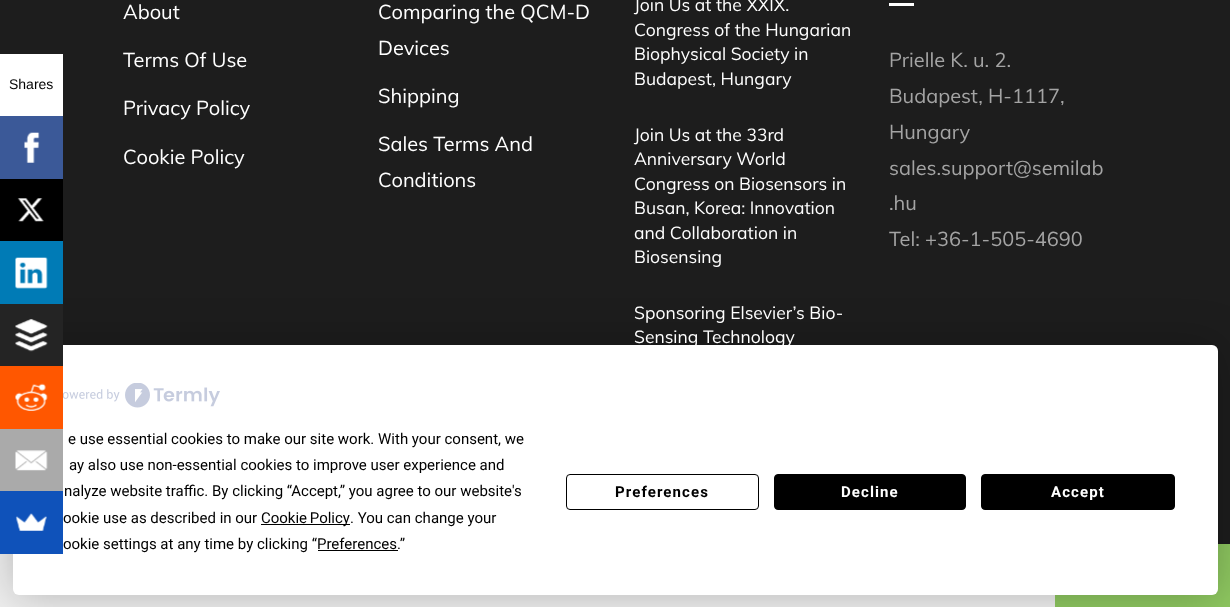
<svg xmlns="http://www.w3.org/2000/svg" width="1230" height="607">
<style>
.a{font:14px Liberation Sans;fill:#000}
.b{font:20px Muli;fill:#fff}
.c{font:17.5px Muli;fill:#fff}
.d{font:20px Muli;fill:#a4a4a4}
.e{font:15px Roboto;fill:#000}
.f{font:bold 15px Roboto;letter-spacing:1.1px;fill:#000}
.g{font:bold 15px Roboto;letter-spacing:1.1px;fill:#fff}
</style>
<rect width="100%" height="100%" fill="#1d1d1d"/>
<path fill="#fff" d="M0 54h63v62H0z"/>
<path fill="#3b5998" d="M0 116h63v63H0z"/>
<image href="1.png" x="24" y="132" width="16" height="31"/>
<path fill="#000" d="M0 179h63v62H0z"/>
<image href="2.png" x="17" y="198" width="27" height="24"/>
<path fill="#efefef" d="M0 554h1055v53H0z"/>
<path fill="#8ec760" d="M1055 544h175v63H1055z"/>
<rect fill="#00000040" filter="blur(22px)" x="13" y="345" width="1205" height="250" rx="6"/>
<path fill="#007bb6" d="M0 241h63v63H0z"/>
<image href="3.png" x="15" y="257" width="33" height="32"/>
<rect fill="#fff" x="13" y="345" width="1205" height="250" rx="6"/>
<path fill="#242424" d="M0 304h63v62H0z"/>
<image href="4.png" x="15" y="319" width="33" height="33"/>
<path fill="#ff5700" d="M0 366h63v63H0z"/>
<image href="5.png" x="15" y="383" width="33" height="28"/>
<path fill="#aaa" d="M0 429h63v62H0z"/>
<image href="6.png" x="15" y="450" width="33" height="21"/>
<path fill="#0f52ba" d="M0 491h63v63H0z"/>
<image href="7.png" x="15" y="513" width="32" height="18"/>
<path fill="#fff" d="M889 3h25v3H889z"/>
<image href="8.png" x="63" y="383" width="157" height="25"/>
<path fill="#000" d="M261 524h89v1H261z"/>
<path fill="#000" d="M318 550h80v1H318z"/>
<rect fill="none" stroke="#000" x="566.5" y="474.5" width="192" height="35" rx="3.5"/>
<rect fill="#000" stroke="#000" x="774.5" y="474.5" width="191" height="35" rx="3.5"/>
<rect fill="#000" stroke="#000" x="981.5" y="474.5" width="193" height="35" rx="3.5"/>
<text class="a" x="9" y="89">Shares</text>
<text class="b" x="123" y="19">About</text>
<text class="b" x="123" y="67">Terms Of Use</text>
<text class="b" x="123" y="115">Privacy Policy</text>
<text class="b" x="123" y="164">Cookie Policy</text>
<text class="b" x="378" y="19">Comparing the QCM-D</text>
<text class="b" x="378" y="55">Devices</text>
<text class="b" x="378" y="103">Shipping</text>
<text class="b" x="378" y="151">Sales Terms And</text>
<text class="b" x="378" y="187">Conditions</text>
<text class="c" x="634" y="11">Join Us at the XXIX.</text>
<text class="c" x="634" y="36">Congress of the Hungarian</text>
<text class="c" x="634" y="60">Biophysical Society in</text>
<text class="c" x="634" y="85">Budapest, Hungary</text>
<text class="c" x="634" y="141">Join Us at the 33rd</text>
<text class="c" x="634" y="165">Anniversary World</text>
<text class="c" x="634" y="190">Congress on Biosensors in</text>
<text class="c" x="634" y="214">Busan, Korea: Innovation</text>
<text class="c" x="634" y="239">and Collaboration in</text>
<text class="c" x="634" y="263">Biosensing</text>
<text class="c" x="634" y="319">Sponsoring Elsevier’s Bio-</text>
<text class="c" x="634" y="343">Sensing Technology</text>
<text class="d" x="889" y="67">Prielle K. u. 2.</text>
<text class="d" x="889" y="103">Budapest, H-1117,</text>
<text class="d" x="889" y="139">Hungary</text>
<text class="d" x="889" y="175">sales.support@semilab</text>
<text class="d" x="889" y="210">.hu</text>
<text class="d" x="889" y="246">Tel: +36-1-505-4690</text>
<text class="e" x="68" y="444">e use essential cookies to make our site work. With your consent, we</text>
<text class="e" x="69" y="470">ay also use non-essential cookies to improve user experience and</text>
<text class="e" x="64" y="496">nalyze website traffic. By clicking “Accept,” you agree to our website's</text>
<text class="e" x="63" y="523">ookie use as described in our</text>
<text class="e" x="261" y="523" word-spacing="-1">Cookie Policy</text>
<text class="e" x="350" y="523">. You can change your</text>
<text class="e" x="63" y="549">ookie settings at any time by clicking “Preferences.”</text>
<text class="f" x="615" y="497">Preferences</text>
<text class="g" x="841" y="497">Decline</text>
<text class="g" x="1051" y="497">Accept</text>
</svg>
